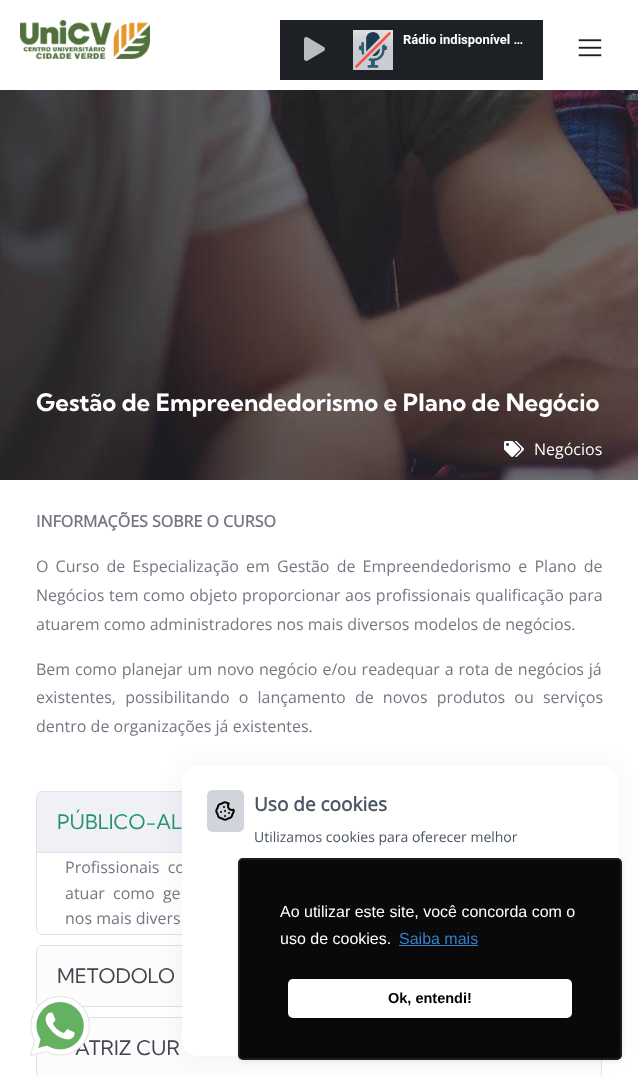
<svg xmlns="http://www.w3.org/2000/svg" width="638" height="1076">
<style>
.a{font:bold 24px Kumbh Sans;fill:#fff}
.b{font:16px Open Sans;fill:#fff}
.c{font:bold 16px Open Sans;fill:#757783}
.d{font:16px Open Sans;fill:#757783}
.e{font:20px Kumbh Sans;fill:#239371}
.f{font:20px Kumbh Sans;fill:#41454f}
.g{font:bold 19px Open Sans;fill:#4b5563}
.h{font:14px Open Sans;fill:#4b5563}
.i{font:16px Liberation Sans;fill:#fff}
.j{font:16px Liberation Sans;fill:#357fce}
.k{font:bold 14.5px Liberation Sans;fill:#000}
</style>
<rect width="100%" height="100%" fill="#fff"/>
<image href="1.png" x="20" y="20" width="130" height="39"/>
<image href="2.png" x="280" y="20" width="263" height="60"/>
<image href="3.png" x="578" y="39" width="24" height="18"/>
<image href="4.png" x="0" y="90" width="638" height="390"/>
<image href="5.png" x="504" y="441" width="20" height="16"/>
<rect fill="none" stroke="#e0e2ea" x="36.5" y="791.5" width="565" height="143" rx="5.5"/>
<path fill="#eff1f6" d="M43 792h552c3.5 0 6 2.5 6 6v54h-564v-54c0-3.5 2.5-6 6-6z"/>
<path fill="#e0e2ea" d="M37 852h145v1H37z"/>
<path fill="#fff" d="M37 853h564v75c0 3.5-2.5 6-6 6h-552c-3.5 0-6-2.5-6-6z"/>
<rect fill="none" stroke="#e0e2ea" x="36.5" y="945.5" width="565" height="61" rx="5.5"/>
<rect fill="#fcfcfd" x="37" y="946" width="564" height="60" rx="6"/>
<rect fill="none" stroke="#e0e2ea" x="36.5" y="1017.5" width="565" height="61" rx="5.5"/>
<rect fill="#fcfcfd" x="37" y="1018" width="564" height="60" rx="6"/>
<rect fill="#0000000d" filter="blur(12.5px)" x="182" y="765" width="436" height="291" rx="16"/>
<text class="a" x="36" y="411">Gestão de Empreendedorismo e Plano de Negócio</text>
<text class="b" x="534" y="455">Negócios</text>
<text class="c" x="36" y="527">INFORMAÇÕES SOBRE O CURSO</text>
<text class="d" x="36" y="572" word-spacing="3">O Curso de Especialização em Gestão de Empreendedorismo e Plano de</text>
<text class="d" x="36" y="601" word-spacing="0.5">Negócios tem como objeto proporcionar aos profissionais qualificação para</text>
<text class="d" x="36" y="630">atuarem como administradores nos mais diversos modelos de negócios.</text>
<text class="d" x="36" y="675" word-spacing="0.75">Bem como planejar um novo negócio e/ou readequar a rota de negócios já</text>
<text class="d" x="36" y="703" word-spacing="5">existentes, possibilitando o lançamento de novos produtos ou serviços</text>
<text class="d" x="36" y="732">dentro de organizações já existentes.</text>
<text class="e" x="57" y="829">PÚBLICO-AL</text>
<text class="d" x="65" y="873" word-spacing="4">Profissionais co</text>
<text class="d" x="65" y="899" word-spacing="4">atuar como ge</text>
<text class="d" x="65" y="924">nos mais divers</text>
<text class="f" x="57" y="983">METODOLO</text>
<text class="f" x="75" y="1055">ATRIZ CUR</text>
<rect fill="#fff" x="182" y="765" width="436" height="291" rx="16"/>
<path fill="#d1d5db" d="M213 790h25c4 0 6 3 6 6v30c0 3-2 6-6 6h-25c-4 0-6-3-6-6v-30c0-3 2-6 6-6z"/>
<image href="6.png" x="215" y="801" width="20" height="20"/>
<text class="g" x="254" y="811">Uso de cookies</text>
<text class="h" x="254" y="842">Utilizamos cookies para oferecer melhor</text>
<rect fill="#636e7c1a" filter="blur(2px)" x="239" y="860" width="384" height="202" rx="5"/>
<rect fill="#090909" x="238" y="858" width="384" height="202" rx="5"/>
<rect fill="none" stroke="#636e7c33" stroke-width="2" x="239" y="859" width="382" height="200" rx="4"/>
<text class="i" x="280" y="917">Ao utilizar este site, você concorda com o</text>
<text class="i" x="280" y="944">uso de cookies.</text>
<text class="j" x="399" y="944">Saiba mais</text>
<path fill="#357fce" d="M399 945h79v1H399z"/>
<rect fill="#fff" x="288" y="979" width="284" height="39" rx="5"/>
<text class="k" x="388" y="1003">Ok, entendi!</text>
<image href="7.png" x="30" y="996" width="60" height="60"/>
</svg>
